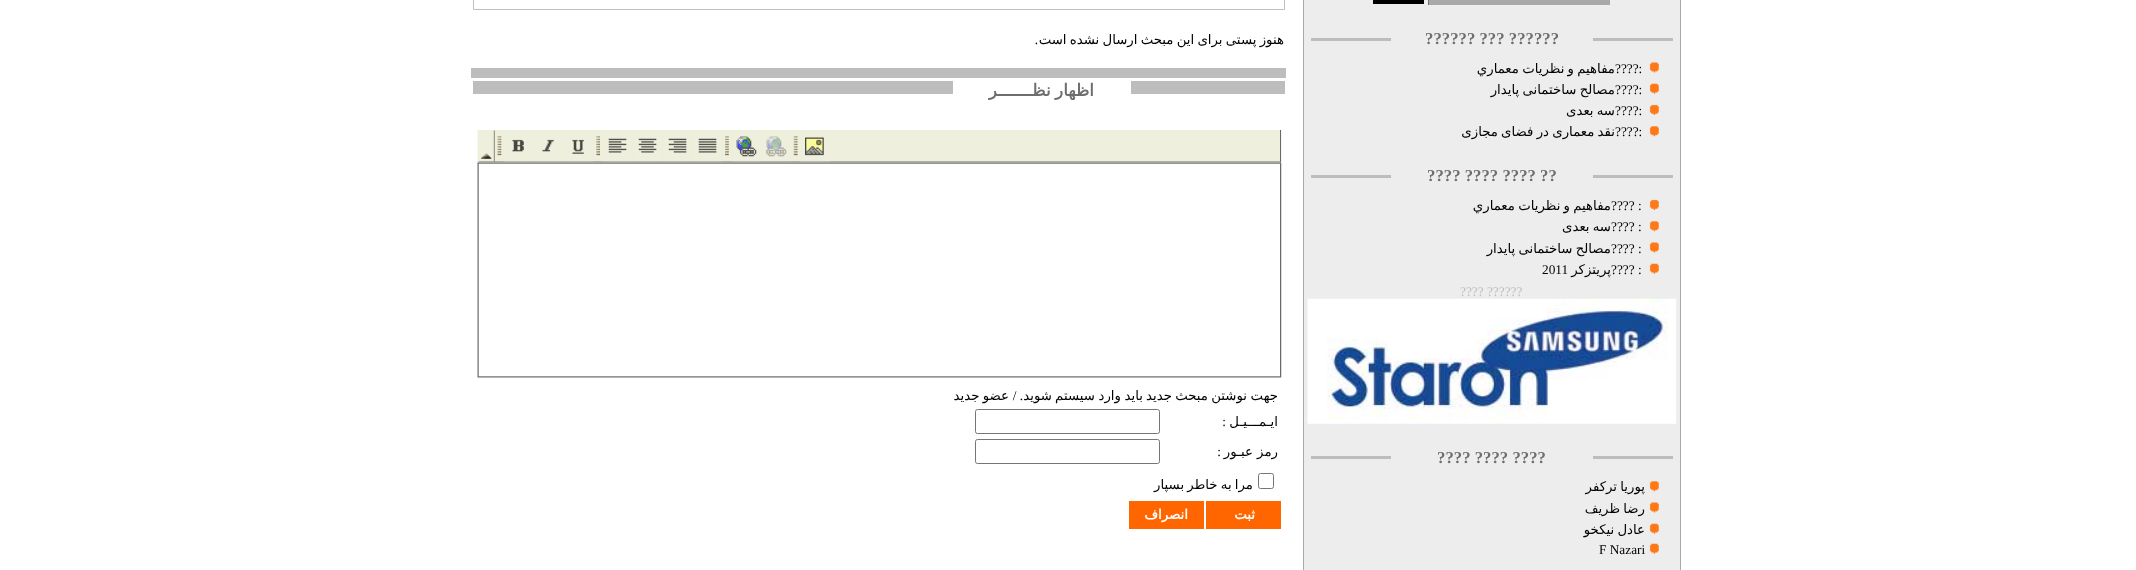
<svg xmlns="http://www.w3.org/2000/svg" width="2136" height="570">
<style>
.a{font:bold 16.75px Liberation Serif;fill:#6e6e6e}
.b{font:13.3px Liberation Serif;fill:#000}
.c{font:13.3px DejaVu Sans;direction:rtl;fill:#000}
.d{font:13.3px Liberation Serif;fill:#bcbec0}
.e{font:13.3px Liberation Serif;direction:rtl;fill:#000}
.f{font:bold 16.75px DejaVu Sans;direction:rtl;fill:#6e6e6e}
.g{font:bold 13.3px DejaVu Sans;direction:rtl;fill:#fff}
</style>
<rect width="100%" height="100%" fill="#fff"/>
<path fill="#ededed" stroke="#a9a9a9" d="M1303.5 -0.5h377v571H1303.5z"/>
<path fill="#a9a9a9" d="M1428 0h182v5H1428z"/>
<path fill="#717171" d="M1428 0h1v5H1428z"/>
<path fill="#000" d="M1373 0h51v4H1373z"/>
<path fill="#bdbdbd" d="M1593 38h80v3H1593z"/>
<path fill="#bdbdbd" d="M1311 38h80v3H1311z"/>
<image href="1.png" x="1649" y="62" width="10" height="11"/>
<image href="2.png" x="1649" y="83" width="10" height="11"/>
<image href="3.png" x="1649" y="104" width="10" height="11"/>
<image href="4.png" x="1649" y="126" width="10" height="11"/>
<path fill="#bdbdbd" d="M1593 175h80v3H1593z"/>
<path fill="#bdbdbd" d="M1311 175h80v3H1311z"/>
<image href="3.png" x="1649" y="199" width="10" height="11"/>
<image href="4.png" x="1649" y="221" width="10" height="11"/>
<image href="1.png" x="1649" y="242" width="10" height="11"/>
<image href="2.png" x="1649" y="263" width="10" height="11"/>
<image href="5.png" x="1307" y="298" width="370" height="126"/>
<path fill="#bdbdbd" d="M1593 456h80v3H1593z"/>
<path fill="#bdbdbd" d="M1311 456h80v3H1311z"/>
<image href="4.png" x="1649" y="481" width="10" height="11"/>
<image href="1.png" x="1649" y="502" width="10" height="11"/>
<image href="2.png" x="1649" y="523" width="10" height="11"/>
<image href="2.png" x="1649" y="543" width="10" height="11"/>
<path fill="none" stroke="#c0c0c0" d="M473.5 -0.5h811v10H473.5z"/>
<path fill="#bdbdbd" d="M471 68h815v10H471z"/>
<path fill="#bdbdbd" d="M1131 81h154v13H1131z"/>
<path fill="#bdbdbd" d="M473 81h480v13H473z"/>
<image href="6.png" x="477" y="130" width="805" height="248"/>
<rect fill="none" stroke="#767676" x="975.5" y="409.5" width="184" height="24" rx="2"/>
<rect fill="none" stroke="#767676" x="975.5" y="439.5" width="184" height="24" rx="2"/>
<rect fill="none" stroke="#767676" x="1258.5" y="473.5" width="15" height="15" rx="2"/>
<path fill="#f60" d="M1206 501h75v28H1206z"/>
<path fill="#f60" d="M1129 501h75v28H1129z"/>
<text class="a" x="1425" y="44">?????? ??? ??????</text>
<text class="b" x="1615" y="73">????:</text>
<text class="c" x="1615" y="73" word-spacing="-1">مفاهيم و نظريات معماري</text>
<text class="b" x="1615" y="94">????:</text>
<text class="c" x="1615" y="94" word-spacing="-1">مصالح ساختمانی پایدار</text>
<text class="b" x="1615" y="115">????:</text>
<text class="c" x="1615" y="115" word-spacing="-1">سه بعدی</text>
<text class="b" x="1615" y="136">????:</text>
<text class="c" x="1615" y="136" word-spacing="-1">نقد معماری در فضای مجازی</text>
<text class="a" x="1427" y="181">???? ???? ???? ??</text>
<text class="b" x="1611" y="210">???? :</text>
<text class="c" x="1611" y="210" word-spacing="-1">مفاهيم و نظريات معماري</text>
<text class="b" x="1611" y="231">???? :</text>
<text class="c" x="1611" y="231" word-spacing="-1">سه بعدی</text>
<text class="b" x="1611" y="253">???? :</text>
<text class="c" x="1611" y="253" word-spacing="-1">مصالح ساختمانی پایدار</text>
<text class="b" x="1611" y="274">???? :</text>
<text class="c" x="1611" y="274">پریتزکر</text>
<text class="b" x="1542" y="274">2011</text>
<text class="d" x="1460" y="296">???? ??????</text>
<text class="a" x="1437" y="463">???? ???? ????</text>
<text class="c" x="1645" y="491" word-spacing="-1">پوریا ترکفر</text>
<text class="c" x="1645" y="513" word-spacing="-1">رضا ظریف</text>
<text class="c" x="1645" y="534" word-spacing="-1">عادل نیکخو</text>
<text class="b" x="1599" y="554">F Nazari</text>
<text class="c" x="1284" y="44" word-spacing="-1">هنوز پستی برای این مبحث ارسال نشده است</text>
<text class="e" x="1038" y="44">.</text>
<text class="f" x="1094" y="96" word-spacing="-1">اظهار نظـــــــر</text>
<text class="c" x="1278" y="400">جهت</text>
<text class="c" x="1247" y="400">نوشتن</text>
<text class="c" x="1208" y="400">مبحث</text>
<text class="c" x="1172" y="400">جدید</text>
<text class="c" x="1143" y="400">باید</text>
<text class="c" x="1121" y="400">وارد</text>
<text class="c" x="1095" y="400">سیستم</text>
<text class="c" x="1052" y="400">شوید</text>
<text class="e" x="1023" y="400">. /</text>
<text class="c" x="1009" y="400" word-spacing="-1">عضو جدید</text>
<text class="c" x="1278" y="426">ایـمـــیـل</text>
<text class="e" x="1226" y="426">:</text>
<text class="c" x="1278" y="456">رمز عبـور</text>
<text class="e" x="1221" y="456">:</text>
<text class="c" x="1253" y="489" word-spacing="-1">مرا به خاطر بسپار</text>
<text class="g" x="1255" y="519">ثبت</text>
<text class="g" x="1188" y="519">انصراف</text>
</svg>
